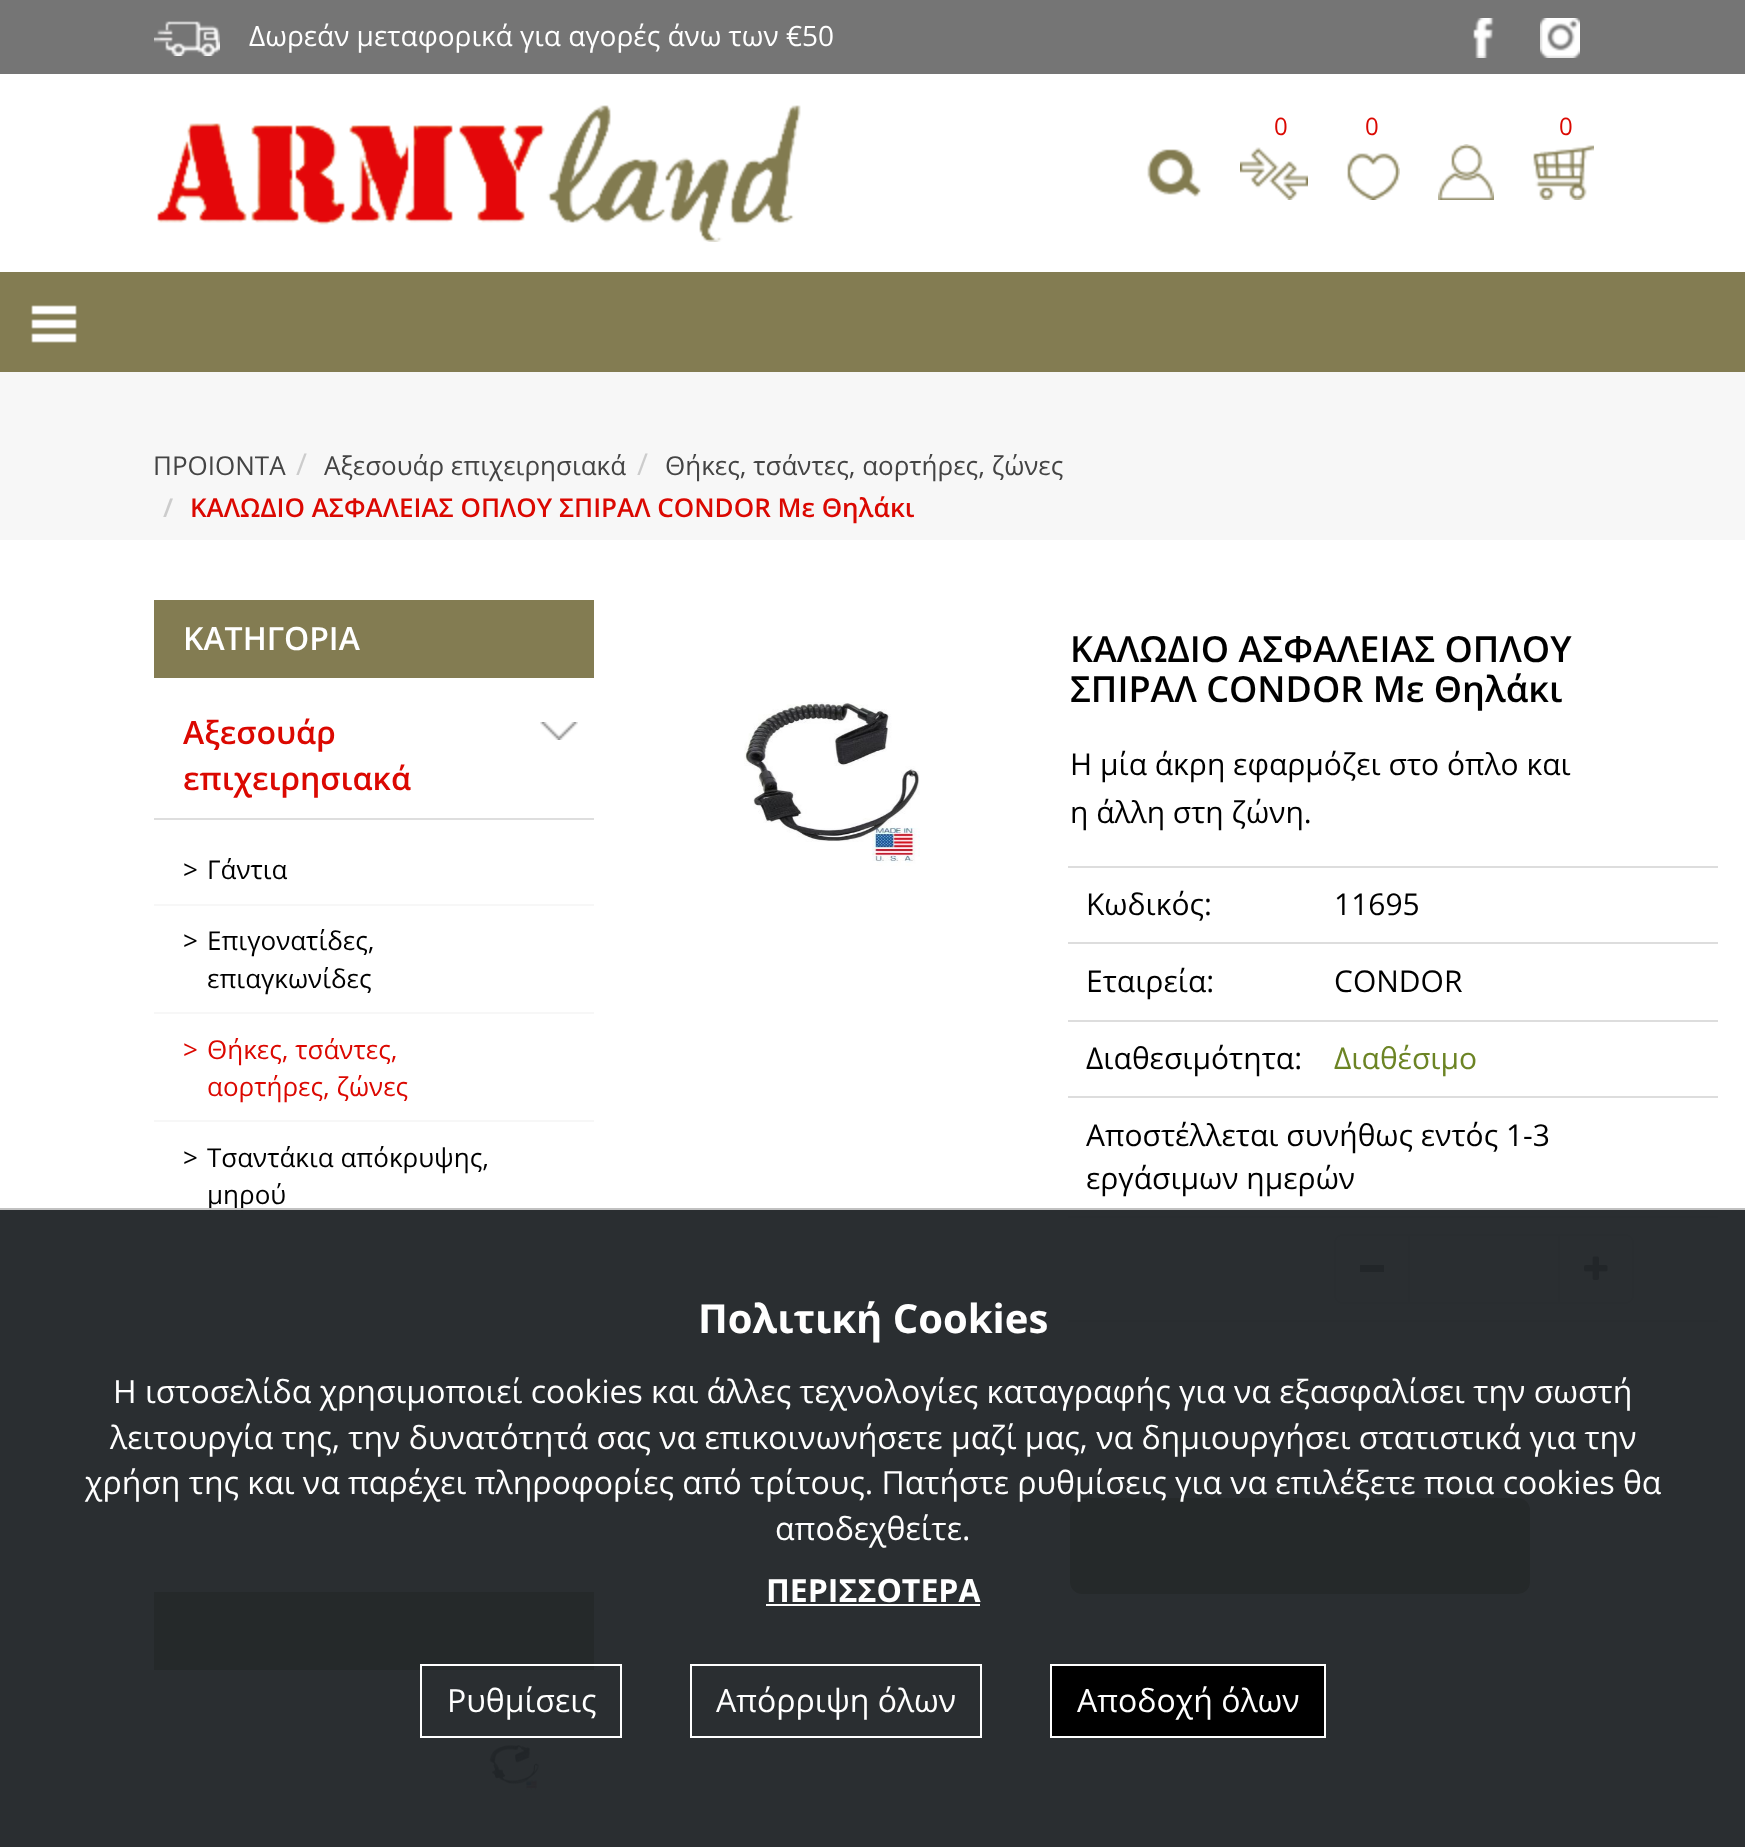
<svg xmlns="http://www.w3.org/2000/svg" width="1745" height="1847">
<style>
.a{font:28px Open Sans;fill:#fff}
.b{font:24px Open Sans;fill:#db0801}
.c{font:26px Open Sans;fill:#444}
.d{font:30px Open Sans;fill:#ccc}
.e{font:600 26px Open Sans;fill:#ccc}
.f{font:600 26px Open Sans;fill:#db0801}
.g{font:600 32px Open Sans;fill:#fff}
.h{font:600 32px Open Sans;fill:#db0801}
.i{font:26px Open Sans;fill:#000}
.j{font:26px Open Sans;fill:#db0801}
.k{font:600 36px Open Sans;fill:#000}
.l{font:30px Open Sans;fill:#000}
.m{font:30px Open Sans;fill:#6c8424}
.n{font:bold 40px Open Sans;fill:#fff}
.o{font:32px Open Sans;fill:#fff}
.p{font:bold 32px Open Sans;fill:#fff}
</style>
<rect width="100%" height="100%" fill="#fff"/>
<path fill="#757575" d="M0 0h1745v74H0z"/>
<image href="1.png" x="154" y="21" width="66" height="35"/>
<image href="2.png" x="1473" y="18" width="21" height="40"/>
<image href="3.png" x="1540" y="18" width="40" height="40"/>
<image href="4.png" x="157" y="105" width="644" height="137"/>
<image href="5.png" x="1240" y="147" width="68" height="53"/>
<image href="6.png" x="1347" y="153" width="53" height="47"/>
<image href="7.png" x="1533" y="145" width="61" height="55"/>
<image href="8.png" x="1147" y="149" width="54" height="48"/>
<image href="9.png" x="1438" y="144" width="56" height="56"/>
<path fill="#837c52" d="M0 272h1745v100H0z"/>
<image href="10.png" x="31" y="305" width="46" height="38"/>
<path fill="#f7f7f7" d="M0 372h1745v168H0z"/>
<path fill="#837c52" d="M154 600h440v78H154z"/>
<path fill="#dedede" d="M154 818h440v2H154z"/>
<image href="11.png" x="540" y="722" width="38" height="18"/>
<path fill="#f7f7f7" d="M154 904h440v2H154z"/>
<path fill="#f7f7f7" d="M154 1012h440v2H154z"/>
<path fill="#f7f7f7" d="M154 1120h440v2H154z"/>
<path fill="#f7f7f7" d="M154 1230h440v2H154z"/>
<path fill="#f7f7f7" d="M154 1300h440v2H154z"/>
<path fill="#f7f7f7" d="M154 1372h440v2H154z"/>
<path fill="#f7f7f7" d="M154 1442h440v2H154z"/>
<path fill="#f7f7f7" d="M154 1550h440v2H154z"/>
<path fill="#837c52" d="M154 1592h440v78H154z"/>
<image href="12.png" x="489" y="1745" width="51" height="45"/>
<image href="13.png" x="744" y="702" width="176" height="164"/>
<path fill="#ddd" d="M1068 866h650v2H1068z"/>
<path fill="#ddd" d="M1068 942h650v2H1068z"/>
<path fill="#ddd" d="M1068 1020h650v2H1068z"/>
<path fill="#ddd" d="M1068 1096h650v2H1068z"/>
<path fill="#ddd" d="M1068 1216h650v2H1068z"/>
<path fill="#f7f7f7" d="M1342 1234h66v70h-66c-4.5 0-8-3.5-8-8v-54c0-4.5 3.5-8 8-8z"/>
<path fill="#dedede" fill-rule="evenodd" d="M1342 1234h66v70h-66c-4 0-8-4-8-8v-54c0-4 4-8 8-8zm0 2h66v66h-66c-3 0-6-3-6-6v-54c0-3 3-6 6-6z"/>
<path fill="#444" d="M1360 1265h24v7H1360z"/>
<path fill="none" stroke="#dedede" stroke-width="2" d="M1409 1235h150v68H1409z"/>
<path fill="#f7f7f7" d="M1560 1234h66c4.5 0 8 3.5 8 8v54c0 4.5-3.5 8-8 8h-66z"/>
<path fill="#dedede" fill-rule="evenodd" d="M1560 1234h66c4 0 8 4 8 8v54c0 4-4 8-8 8h-66zm0 2h66c3 0 6 3 6 6v54c0 3-3 6-6 6h-66z"/>
<image href="14.png" x="1584" y="1256" width="24" height="24"/>
<path fill="#ddd" d="M1068 1320h650v2H1068z"/>
<rect fill="#837c52" stroke="#837c52" stroke-width="2" x="1071" y="1499" width="458" height="94" rx="11"/>
<text class="a" x="249" y="46">Δωρεάν μεταφορικά για αγορές άνω των €50</text>
<text class="b" x="1274" y="135">0</text>
<text class="b" x="1365" y="135">0</text>
<text class="b" x="1559" y="135">0</text>
<text class="c" x="153" y="475">ΠΡΟΙΟΝΤΑ</text>
<text class="d" x="296" y="475">/</text>
<text class="c" x="324" y="475">Αξεσουάρ επιχειρησιακά</text>
<text class="d" x="637" y="475">/</text>
<text class="c" x="665" y="475">Θήκες, τσάντες, αορτήρες, ζώνες</text>
<text class="e" x="163" y="517">/</text>
<text class="f" x="190" y="517">ΚΑΛΩΔΙΟ ΑΣΦΑΛΕΙΑΣ ΟΠΛΟΥ ΣΠΙΡΑΛ CONDOR Με Θηλάκι</text>
<text class="g" x="183" y="650">ΚΑΤΗΓΟΡΙΑ</text>
<text class="h" x="183" y="744">Αξεσουάρ</text>
<text class="h" x="183" y="790">επιχειρησιακά</text>
<text class="i" x="183" y="879">&gt;</text>
<text class="i" x="207" y="879">Γάντια</text>
<text class="i" x="183" y="950">&gt;</text>
<text class="i" x="207" y="950">Επιγονατίδες,</text>
<text class="i" x="207" y="988">επιαγκωνίδες</text>
<text class="j" x="183" y="1059">&gt;</text>
<text class="j" x="207" y="1059">Θήκες, τσάντες,</text>
<text class="j" x="207" y="1096">αορτήρες, ζώνες</text>
<text class="i" x="183" y="1167">&gt;</text>
<text class="i" x="207" y="1167">Τσαντάκια απόκρυψης,</text>
<text class="i" x="207" y="1204">μηρού</text>
<text class="k" x="1070" y="662">ΚΑΛΩΔΙΟ ΑΣΦΑΛΕΙΑΣ ΟΠΛΟΥ</text>
<text class="k" x="1070" y="702">ΣΠΙΡΑΛ CONDOR Με Θηλάκι</text>
<text class="l" x="1070" y="775">H μία άκρη εφαρμόζει στο όπλο και</text>
<text class="l" x="1070" y="823">η άλλη στη ζώνη.</text>
<text class="l" x="1086" y="915">Κωδικός:</text>
<text class="l" x="1334" y="915">11695</text>
<text class="l" x="1086" y="992">Εταιρεία:</text>
<text class="l" x="1334" y="992">CONDOR</text>
<text class="l" x="1086" y="1069">Διαθεσιμότητα:</text>
<text class="m" x="1334" y="1069">Διαθέσιμο</text>
<text class="l" x="1086" y="1146">Αποστέλλεται συνήθως εντός 1-3</text>
<text class="l" x="1086" y="1189">εργάσιμων ημερών</text>
<path fill="#c1c1c1" d="M0 1208h1745v2H0z"/>
<path fill="#212529f5" d="M0 1210h1745v637H0z"/>
<text class="n" x="698" y="1333">Πολιτική Cookies</text>
<text class="o" x="113" y="1403">Η ιστοσελίδα χρησιμοποιεί cookies και άλλες τεχνολογίες καταγραφής για να εξασφαλίσει την σωστή</text>
<text class="o" x="110" y="1449">λειτουργία της, την δυνατότητά σας να επικοινωνήσετε μαζί μας, να δημιουργήσει στατιστικά για την</text>
<text class="o" x="85" y="1494">χρήση της και να παρέχει πληροφορίες από τρίτους. Πατήστε ρυθμίσεις για να επιλέξετε ποια cookies θα</text>
<text class="o" x="775" y="1540">αποδεχθείτε.</text>
<text class="p" x="766" y="1602">ΠΕΡΙΣΣΟΤΕΡΑ</text>
<path fill="#fff" d="M766 1604h214v2H766z"/>
<path fill="none" stroke="#fff" stroke-width="2" d="M421 1665h200v72H421z"/>
<text class="o" x="447" y="1712">Ρυθμίσεις</text>
<path fill="none" stroke="#fff" stroke-width="2" d="M691 1665h290v72H691z"/>
<text class="o" x="716" y="1712">Απόρριψη όλων</text>
<path fill="#000" stroke="#fff" stroke-width="2" d="M1051 1665h274v72H1051z"/>
<text class="o" x="1077" y="1712">Αποδοχή όλων</text>
</svg>
